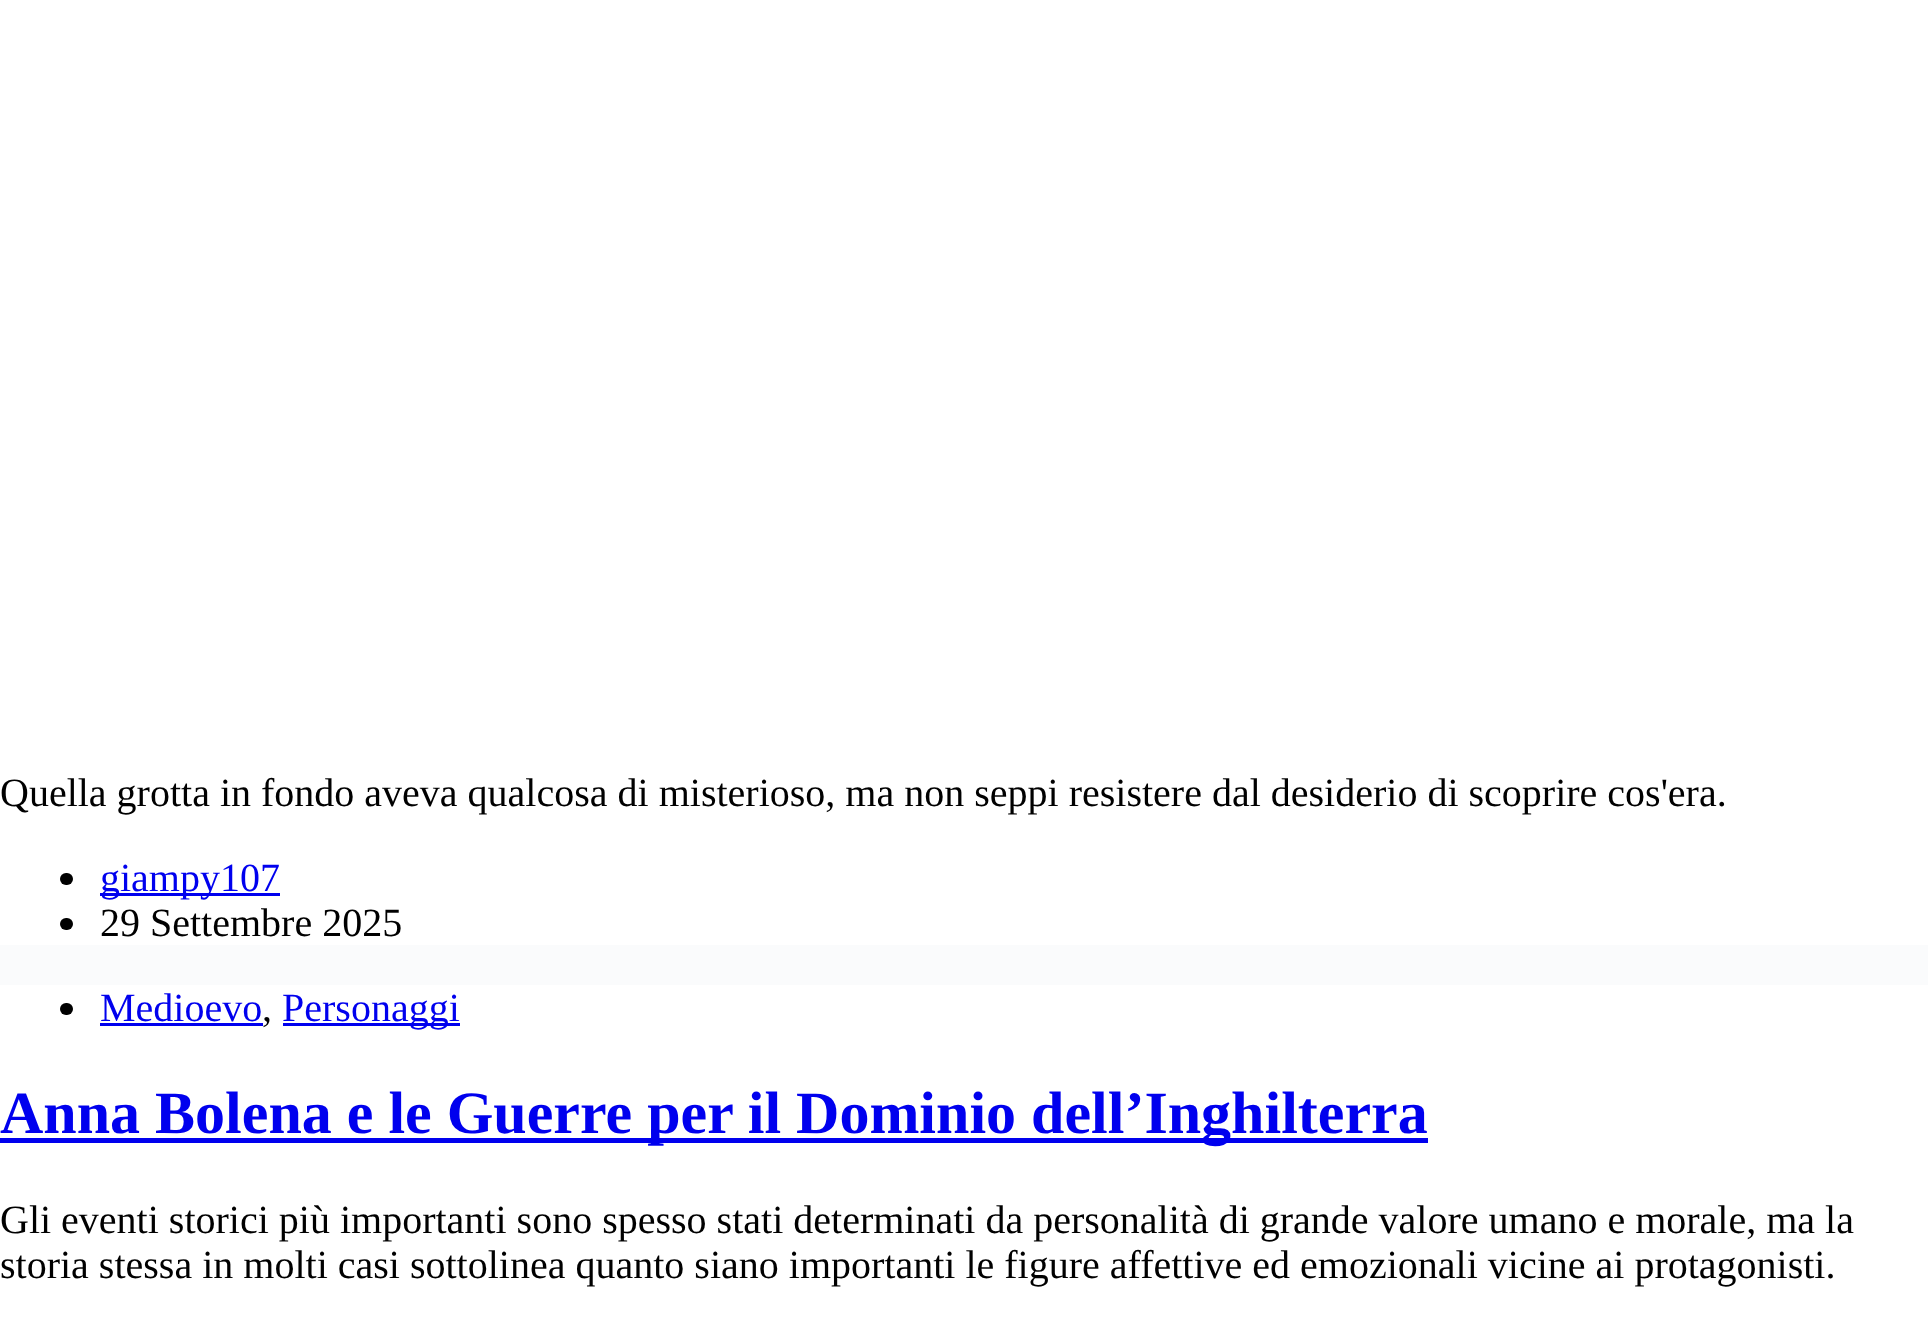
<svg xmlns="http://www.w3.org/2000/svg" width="1928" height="1324">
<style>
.a{font:40px Liberation Serif;fill:#000}
.b{font:40px Liberation Serif;fill:#00e}
.c{font:bold 60px Liberation Serif;fill:#00e}
</style>
<rect width="100%" height="100%" fill="#fafbfc"/>
<path fill="#fff" d="M0 0h1928v945H0z"/>
<rect fill="#000" x="60" y="873" width="13" height="12" rx="6"/>
<path fill="#00e" d="M100 893h180v3H100z"/>
<rect fill="#000" x="60" y="918" width="13" height="12" rx="6"/>
<path fill="#fff" d="M0 985h1928v339H0z"/>
<rect fill="#000" x="60" y="1003" width="13" height="12" rx="6"/>
<path fill="#00e" d="M100 1023h163v3H100z"/>
<path fill="#00e" d="M283 1023h177v3H283z"/>
<path fill="#00e" d="M0 1138h1428v5H0z"/>
<text class="a" x="0" y="806">Quella grotta in fondo aveva qualcosa di misterioso, ma non seppi resistere dal desiderio di scoprire cos'era.</text>
<text class="b" x="100" y="891">giampy107</text>
<text class="a" x="100" y="936">29 Settembre 2025</text>
<text class="b" x="100" y="1021">Medioevo</text>
<text class="b" x="282" y="1021">Personaggi</text>
<text class="a" x="262" y="1021">,</text>
<text class="c" x="0" y="1133">Anna Bolena e le Guerre per il Dominio dell’Inghilterra</text>
<text class="a" x="0" y="1233">Gli eventi storici più importanti sono spesso stati determinati da personalità di grande valore umano e morale, ma la</text>
<text class="a" x="0" y="1278">storia stessa in molti casi sottolinea quanto siano importanti le figure affettive ed emozionali vicine ai protagonisti.</text>
</svg>
